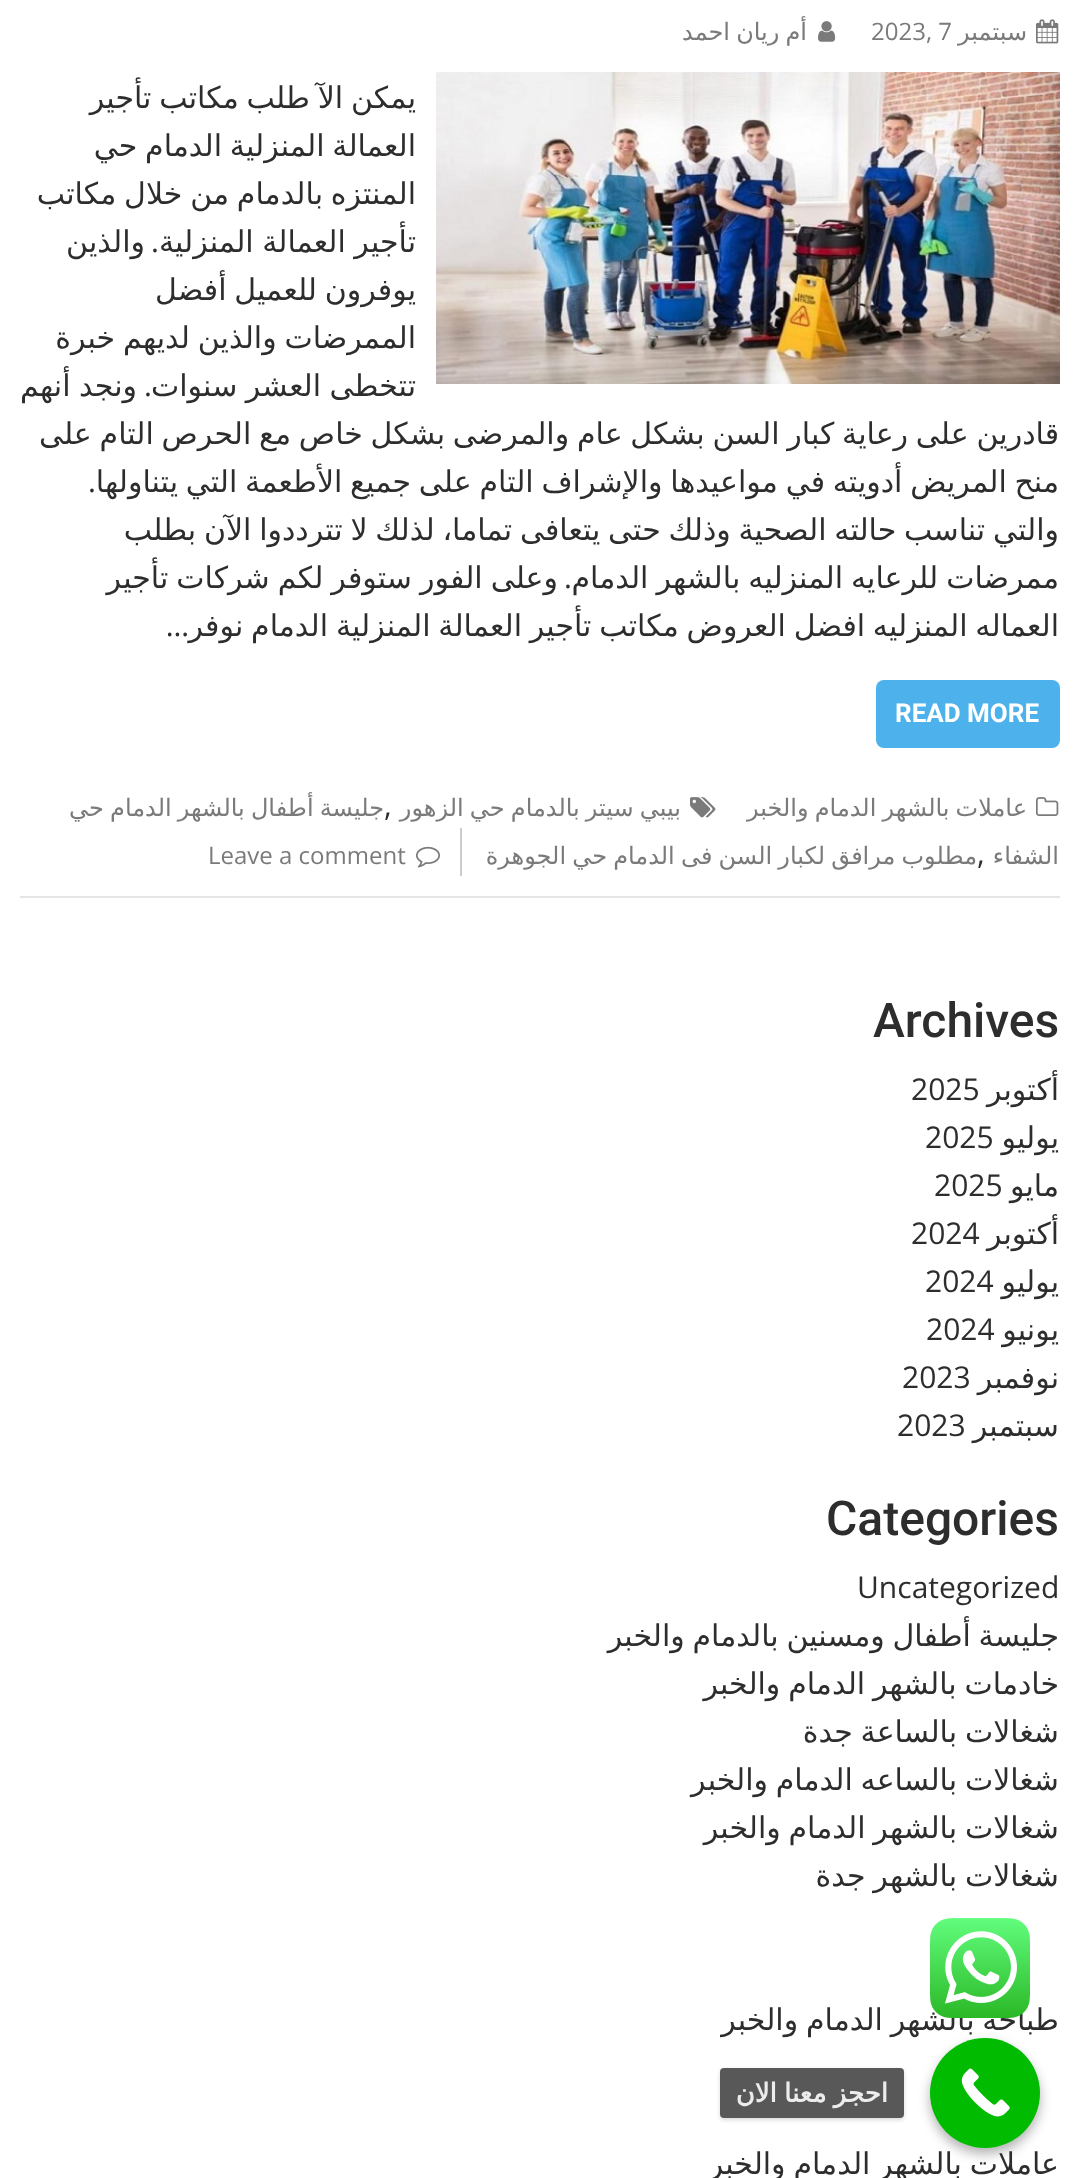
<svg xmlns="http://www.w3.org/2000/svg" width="1080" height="2178">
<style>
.a{font:24px DejaVu Sans;direction:rtl;fill:#7a7a7a}
.b{font:24px Open Sans;fill:#7a7a7a}
.c{font:30px DejaVu Sans;direction:rtl;fill:#2d2d2d}
.d{font:30px Open Sans;direction:rtl;fill:#2d2d2d}
.e{font:bold 26px Roboto;fill:#fff}
.f{font:30px Open Sans;fill:#2d2d2d}
.g{font:500 48px Roboto;fill:#2d2d2d}
.h{font:bold 26px DejaVu Sans;direction:rtl;fill:#ececec}
</style>
<defs>
<clipPath id="clip1"><path d="M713 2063h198v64h-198zm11 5h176c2 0 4 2 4 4v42c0 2-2 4-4 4h-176c-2 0-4-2-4-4v-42c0-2 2-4 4-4z" clip-rule="evenodd"/></clipPath>
</defs>
<rect width="100%" height="100%" fill="#fff"/>
<path fill="#e5e5e5" d="M20 896h1040v2H20z"/>
<image href="1.png" x="1036" y="19" width="23" height="25"/>
<image href="2.png" x="818" y="21" width="18" height="21"/>
<image href="3.png" x="436" y="72" width="624" height="312"/>
<rect fill="#4db2ec" x="876" y="680" width="184" height="68" rx="8"/>
<image href="4.png" x="690" y="797" width="26" height="21"/>
<image href="5.png" x="1036" y="797" width="23" height="19"/>
<path fill="#ccc" d="M460 828h2v48H460z"/>
<image href="6.png" x="416" y="846" width="24" height="22"/>
<rect fill="#0000004d" filter="blur(6px)" x="930" y="2044" width="110" height="110" rx="55"/>
<circle fill="#0b0" cx="985" cy="2093" r="55"/>
<image href="8.png" x="961" y="2068" width="49" height="49"/>
<g clip-path="url(#clip1)">
<rect fill="#00000026" filter="blur(2px)" x="720" y="2070" width="184" height="50" rx="4"/>
</g>
<rect fill="#464646e6" x="720" y="2068" width="184" height="50" rx="4"/>
<text class="a" x="1027" y="40">سبتمبر</text>
<text class="b" x="871" y="40">2023, 7</text>
<text class="a" x="807" y="40" word-spacing="-1.5">أم ريان احمد</text>
<text class="c" x="416" y="108" word-spacing="-1.75">يمكن الآ طلب مكاتب تأجير</text>
<text class="c" x="416" y="156" word-spacing="-1.75">العمالة المنزلية الدمام حي</text>
<text class="c" x="416" y="204" word-spacing="-1.75">المنتزه بالدمام من خلال مكاتب</text>
<text class="c" x="416" y="252" word-spacing="-1">تأجير العمالة المنزلية</text>
<text class="d" x="159" y="252">.</text>
<text class="c" x="145" y="252">والذين</text>
<text class="c" x="416" y="300" word-spacing="-1.75">يوفرون للعميل أفضل</text>
<text class="c" x="416" y="348" word-spacing="-1.75">الممرضات والذين لديهم خبرة</text>
<text class="c" x="416" y="396" word-spacing="-1">تتخطى العشر سنوات</text>
<text class="d" x="152" y="396">.</text>
<text class="c" x="137" y="396" word-spacing="-1">ونجد أنهم</text>
<text class="c" x="1059" y="444" word-spacing="-1.75">قادرين على رعاية كبار السن بشكل عام والمرضى بشكل خاص مع الحرص التام على</text>
<text class="c" x="1059" y="492" word-spacing="-1.75">منح المريض أدويته في مواعيدها والإشراف التام على جميع الأطعمة التي يتناولها</text>
<text class="d" x="96" y="492">.</text>
<text class="c" x="1059" y="540" word-spacing="-1.75">والتي تناسب حالته الصحية وذلك حتى يتعافى تماما، لذلك لا تترددوا الآن بطلب</text>
<text class="c" x="1059" y="588" word-spacing="-1.5">ممرضات للرعايه المنزليه بالشهر الدمام</text>
<text class="d" x="572" y="588">.</text>
<text class="c" x="558" y="588" word-spacing="-1.5">وعلى الفور ستوفر لكم شركات تأجير</text>
<text class="c" x="1059" y="636" word-spacing="-1.75">العماله المنزليه افضل العروض مكاتب تأجير العمالة المنزلية الدمام نوفر</text>
<text class="d" x="189" y="636">…</text>
<text class="e" x="895" y="722">READ MORE</text>
<text class="a" x="681" y="816" word-spacing="-1.5">بيبي سيتر بالدمام حي الزهور</text>
<text class="f" x="384" y="816">,</text>
<text class="a" x="384" y="816" word-spacing="-1.5">جليسة أطفال بالشهر الدمام حي</text>
<text class="a" x="1059" y="864">الشفاء</text>
<text class="f" x="977" y="864">,</text>
<text class="a" x="977" y="864" word-spacing="-1.5">مطلوب مرافق لكبار السن فى الدمام حي الجوهرة</text>
<text class="a" x="1027" y="816" word-spacing="-1.5">عاملات بالشهر الدمام والخبر</text>
<text class="b" x="208" y="864">Leave a comment</text>
<text class="g" x="873" y="1037">Archives</text>
<text class="c" x="1059" y="1100">أكتوبر</text>
<text class="f" x="911" y="1100">2025</text>
<text class="c" x="1059" y="1148">يوليو</text>
<text class="f" x="925" y="1148">2025</text>
<text class="c" x="1059" y="1196">مايو</text>
<text class="f" x="934" y="1196">2025</text>
<text class="c" x="1059" y="1244">أكتوبر</text>
<text class="f" x="911" y="1244">2024</text>
<text class="c" x="1059" y="1292">يوليو</text>
<text class="f" x="925" y="1292">2024</text>
<text class="c" x="1059" y="1340">يونيو</text>
<text class="f" x="926" y="1340">2024</text>
<text class="c" x="1059" y="1388">نوفمبر</text>
<text class="f" x="902" y="1388">2023</text>
<text class="c" x="1059" y="1436">سبتمبر</text>
<text class="f" x="897" y="1436">2023</text>
<text class="g" x="826" y="1535">Categories</text>
<text class="f" x="857" y="1598">Uncategorized</text>
<text class="c" x="1059" y="1646" word-spacing="-1.75">جليسة أطفال ومسنين بالدمام والخبر</text>
<text class="c" x="1059" y="1694" word-spacing="-1.75">خادمات بالشهر الدمام والخبر</text>
<text class="c" x="1059" y="1742" word-spacing="-1.75">شغالات بالساعة جدة</text>
<text class="c" x="1059" y="1790" word-spacing="-1.75">شغالات بالساعه الدمام والخبر</text>
<text class="c" x="1059" y="1838" word-spacing="-1.75">شغالات بالشهر الدمام والخبر</text>
<text class="c" x="1059" y="1886" word-spacing="-1.75">شغالات بالشهر جدة</text>
<text class="c" x="1059" y="2030" word-spacing="-1.75">طباخه بالشهر الدمام والخبر</text>
<text class="c" x="1059" y="2174" word-spacing="-1.75">عاملات بالشهر الدمام والخبر</text>
<image href="7.png" x="930" y="1918" width="100" height="100"/>
<text class="h" x="888" y="2102" word-spacing="-1">احجز معنا الان</text>
</svg>
